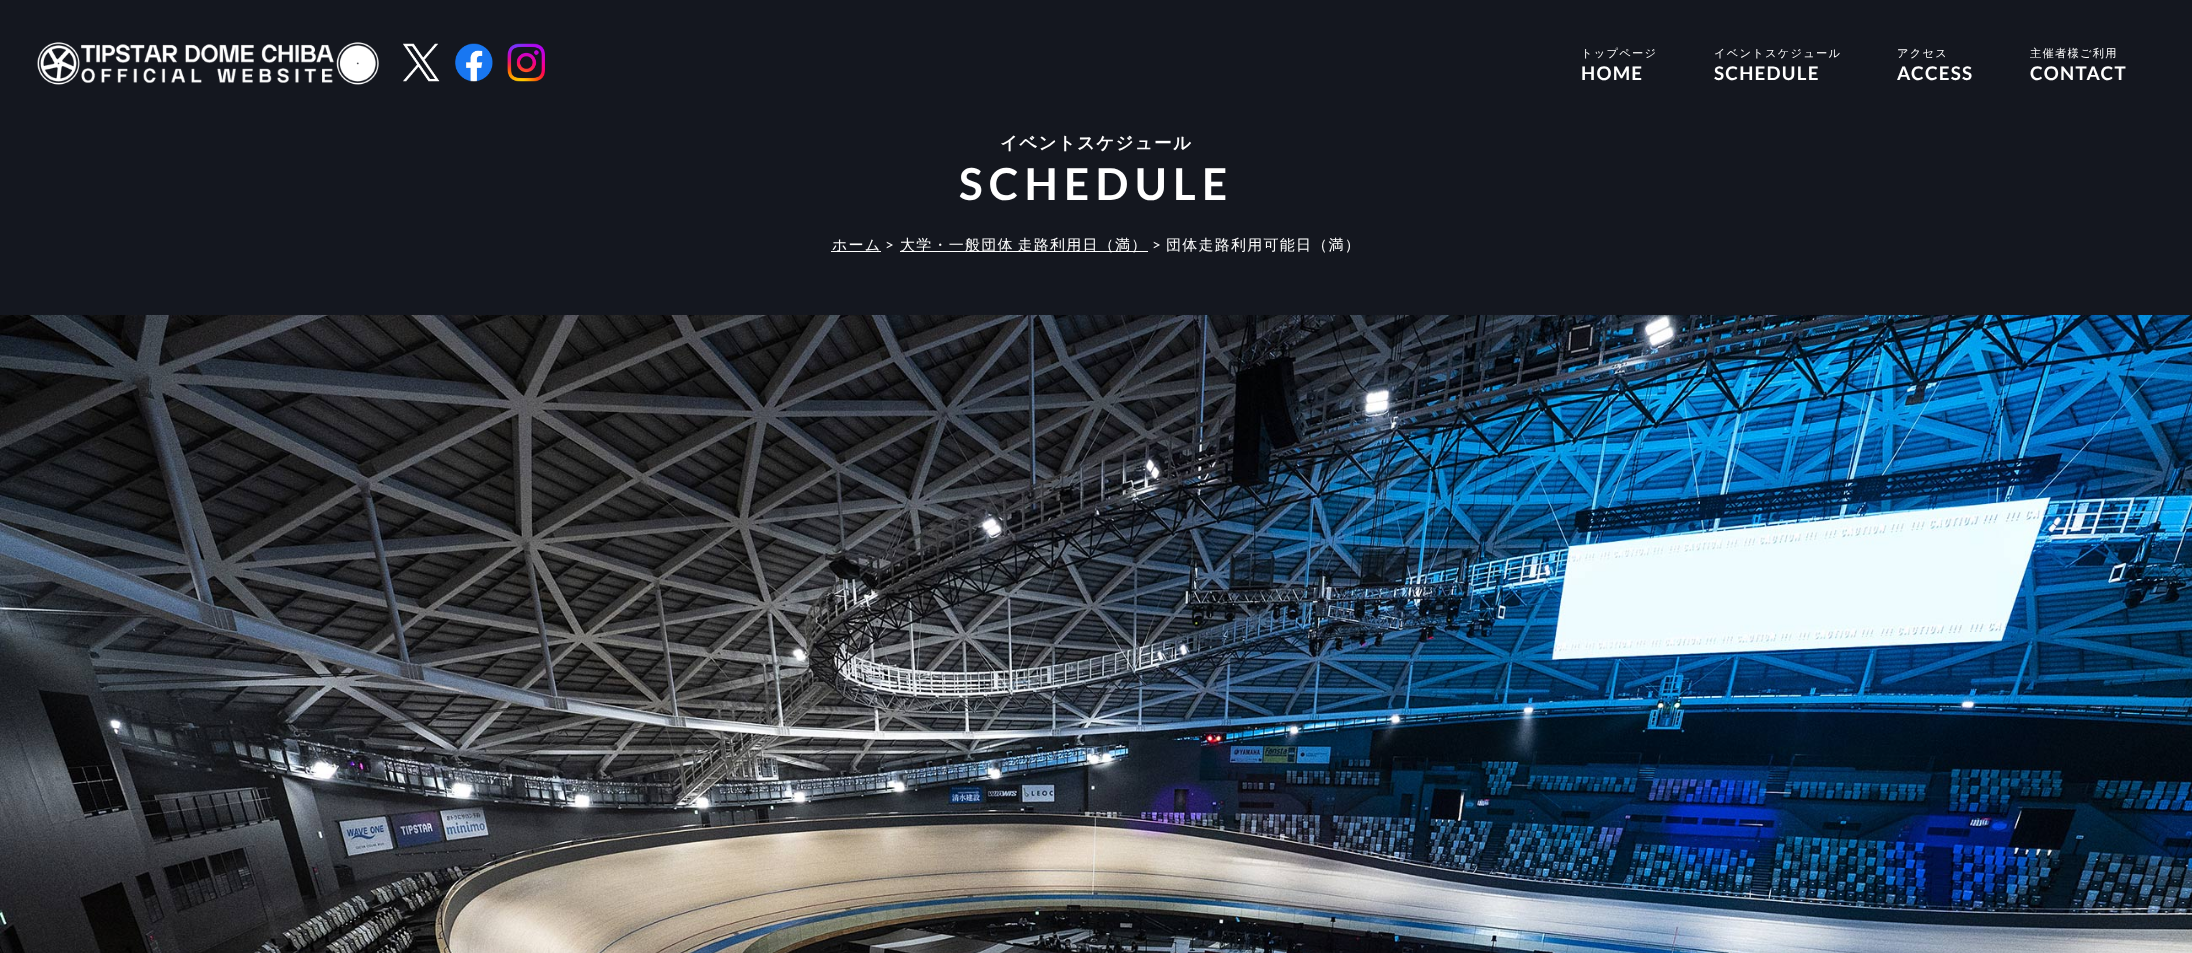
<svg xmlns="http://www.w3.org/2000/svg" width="2192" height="953">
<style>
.a{font:500 11.25px WenQuanYi Zen Hei;letter-spacing:1.25px;fill:#fff}
.b{font:bold 18.75px Lato;letter-spacing:1.25px;fill:#fff}
.c{font:bold 17.6px WenQuanYi Zen Hei;letter-spacing:1.25px;fill:#fff}
.d{font:bold 44px Lato;letter-spacing:6.25px;fill:#fff}
.e{font:500 15px WenQuanYi Zen Hei;letter-spacing:1.25px;fill:#fff}
.f{font:15px Lato;letter-spacing:1.25px;fill:#fff}
</style>
<rect width="100%" height="100%" fill="#fff"/>
<path fill="#14171f" d="M0 0h2192v315H0z"/>
<image href="1.png" x="37" y="42" width="342" height="43"/>
<image href="2.png" x="403" y="43" width="37" height="39"/>
<image href="3.png" x="455" y="43" width="38" height="39"/>
<image href="4.png" x="507" y="43" width="38" height="39"/>
<path fill="#fff" d="M831 251h50v1H831z"/>
<path fill="#fff" d="M900 251h248v1H900z"/>
<image href="5.png" x="0" y="315" width="2192" height="638"/>
<text class="a" x="1581" y="57">トップページ</text>
<text class="b" x="1581" y="80">HOME</text>
<text class="a" x="1714" y="57">イベントスケジュール</text>
<text class="b" x="1714" y="80">SCHEDULE</text>
<text class="a" x="1897" y="57">アクセス</text>
<text class="b" x="1897" y="80">ACCESS</text>
<text class="a" x="2030" y="57">主催者様ご利用</text>
<text class="b" x="2030" y="80">CONTACT</text>
<text class="c" x="1000" y="149">イベントスケジュール</text>
<text class="d" x="959" y="200">SCHEDULE</text>
<text class="e" x="832" y="250">ホーム</text>
<text class="f" x="885" y="250">&gt;</text>
<text class="e" x="900" y="250" word-spacing="-2">大学・一般団体 走路利用日（満）</text>
<text class="f" x="1152" y="250">&gt;</text>
<text class="e" x="1166" y="250">団体走路利用可能日（満）</text>
</svg>
